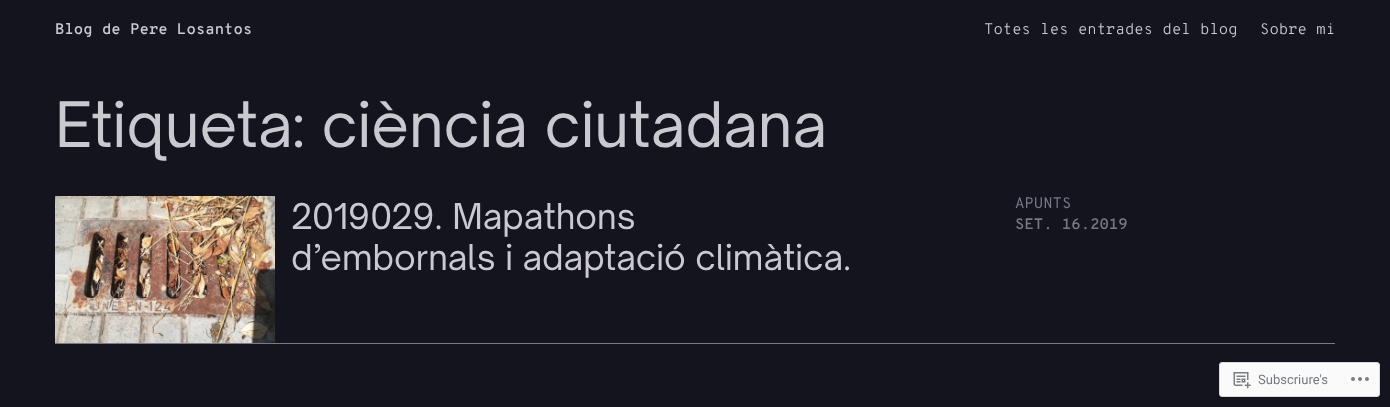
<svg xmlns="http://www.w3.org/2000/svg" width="1390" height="407">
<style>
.a{font:600 15.25px Overpass Mono;fill:#cac9cf}
.b{font:300 15.25px Overpass Mono;fill:#cac9cf}
.c{font:60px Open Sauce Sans;fill:#cac9cf}
.d{font:34px Open Sauce Sans;fill:#cac9cf}
.e{font:15.25px Overpass Mono;fill:#797986}
.f{font:600 15.25px Overpass Mono;fill:#797986}
.g{font:13px Roboto;fill:#767a80}
</style>
<rect width="100%" height="100%" fill="#14141f"/>
<path fill="#797986" d="M55 343h1280v1H55z"/>
<image href="1.png" x="55" y="196" width="220" height="147"/>
<rect fill="#fafafb" stroke="#d8d8da" x="1219.5" y="362.5" width="160" height="34" rx="2.5"/>
<image href="2.png" x="1233" y="372" width="18" height="17"/>
<image href="3.png" x="1351" y="377" width="18" height="4"/>
<text class="a" x="55" y="34">Blog de Pere Losantos</text>
<text class="b" x="984" y="34">Totes les entrades del blog</text>
<text class="b" x="1260" y="34">Sobre mi</text>
<text class="c" x="55" y="147">Etiqueta: ciència ciutadana</text>
<text class="d" x="291" y="229">2019029. Mapathons</text>
<text class="d" x="291" y="270">d’embornals i adaptació climàtica.</text>
<text class="e" x="1015" y="208">APUNTS</text>
<text class="f" x="1015" y="229">SET. 16.2019</text>
<text class="g" x="1258" y="384">Subscriure's</text>
</svg>
